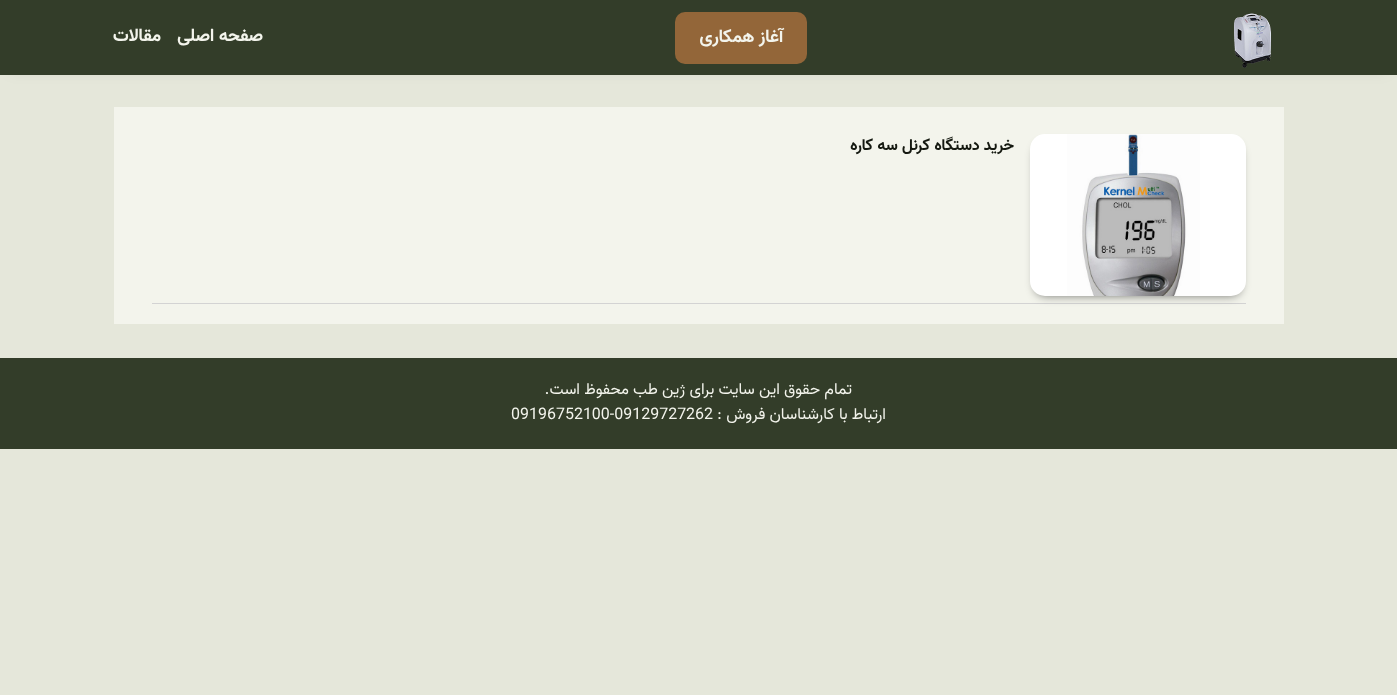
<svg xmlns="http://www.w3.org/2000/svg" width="1397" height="695">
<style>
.a{font:bold 18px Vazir;direction:rtl;fill:#f3f4ec}
.b{font:bold 16px Vazir;direction:rtl;fill:#141810}
.c{font:16px Vazir;direction:rtl;fill:#f3f4ec}
.d{font:16px Vazir;fill:#f3f4ec}
</style>
<rect width="100%" height="100%" fill="#e5e7da"/>
<path fill="#0000001a" filter="blur(7.5px)" d="M10 15h1377v55H10z"/>
<path fill="#333d29" d="M0 0h1397v75H0z"/>
<image href="1.png" x="1234" y="13" width="38" height="55"/>
<rect fill="#936639" x="675" y="12" width="132" height="52" rx="10"/>
<path fill="#f3f4ec" d="M114 107h1170v217H114z"/>
<path fill="#d3d3d3" d="M152 303h1094v1H152z"/>
<rect fill="#00000080" filter="blur(5px)" x="1035" y="144" width="206" height="152" rx="10"/>
<image href="2.png" x="1030" y="134" width="216" height="162"/>
<path fill="#333d29" d="M0 358h1397v91H0z"/>
<text class="a" x="783" y="42">آغاز همکاری</text>
<text class="a" x="263" y="41">صفحه اصلی</text>
<text class="a" x="161" y="41">مقالات</text>
<text class="b" x="1014" y="150">خرید دستگاه کرنل سه کاره</text>
<text class="c" x="852" y="394">تمام حقوق این سایت برای ژین طب محفوظ است.</text>
<text class="c" x="886" y="419">ارتباط با کارشناسان فروش :</text>
<text class="d" x="511" y="419">09196752100-09129727262</text>
</svg>
